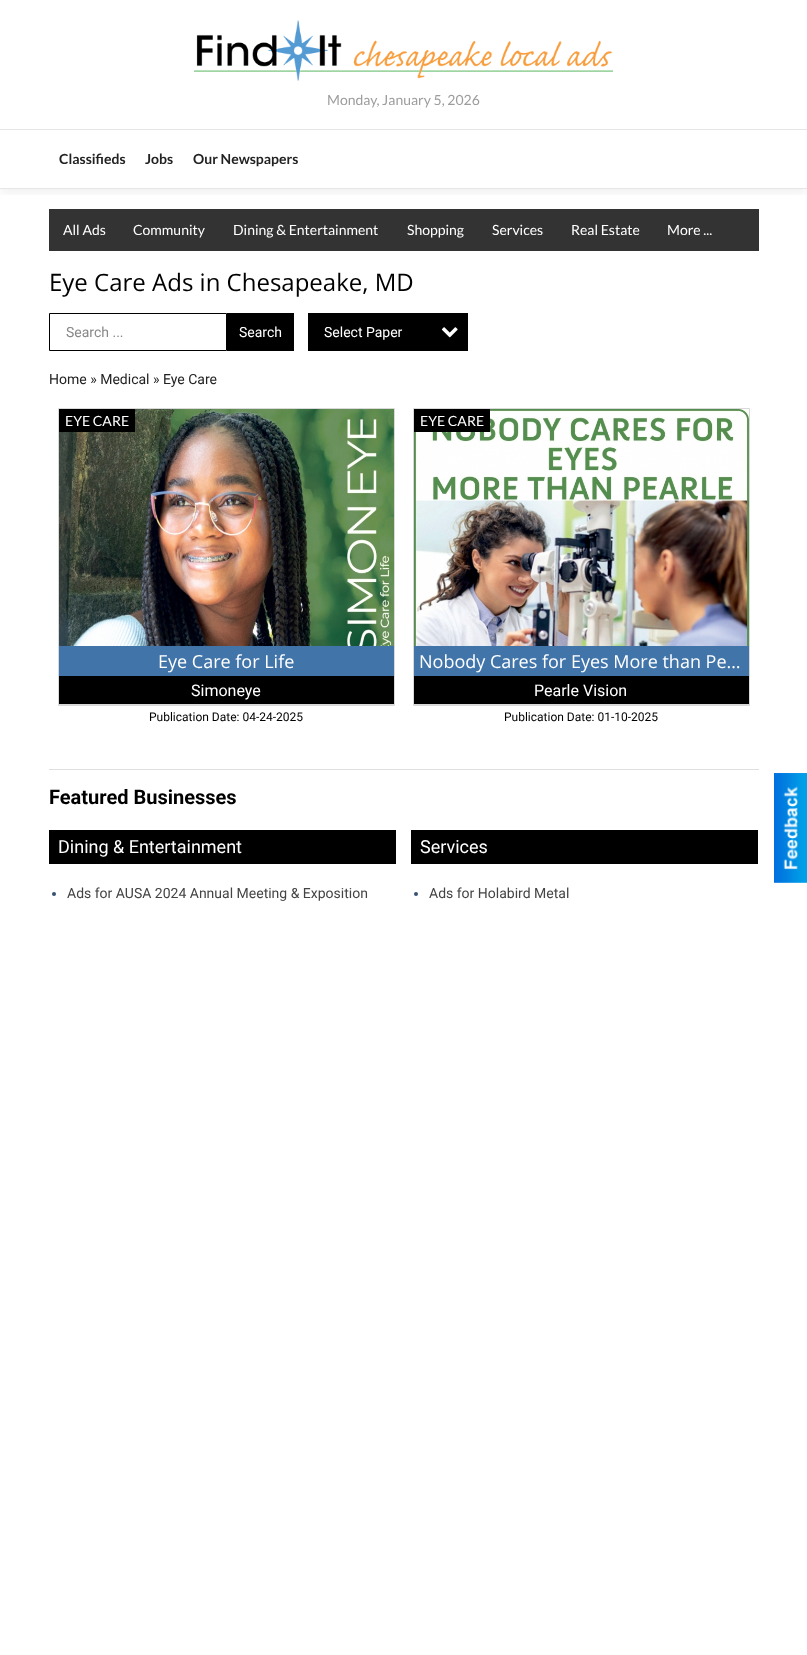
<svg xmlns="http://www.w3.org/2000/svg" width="807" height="1655">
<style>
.a{font:14px Lato;fill:#9e9c9c}
.b{font:bold 14px Lato;fill:#222}
.c{font:14px Lato;fill:#fff}
.d{font:24px Open Sans;fill:#000}
.e{font:14px Roboto;fill:#888}
.f{font:14px Roboto;fill:#fff}
.g{font:14px Roboto;fill:#222}
.h{font:18px Open Sans;fill:#fff}
.i{font:16px Roboto;fill:#fff}
.j{font:12px Roboto;fill:#000}
.k{font:bold 20px Roboto;fill:#000}
.l{font:18px Roboto;fill:#fff}
.m{font:14px Roboto;fill:#444}
</style>
<defs>
<clipPath id="clip1"><path d="M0 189h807v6H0z"/></clipPath>
</defs>
<rect width="100%" height="100%" fill="#fff"/>
<path fill="#333" d="M49 209h710v42H49z"/>
<g clip-path="url(#clip1)">
<path fill="#0000000d" filter="blur(5px)" d="M0 5h807v189H0z"/>
</g>
<path fill="#e6e6e6" d="M0 188h807v1H0z"/>
<image href="1.png" x="194" y="20" width="419" height="61"/>
<path fill="#e6e6e6" d="M0 129h807v1H0z"/>
<path fill="none" stroke="#000" d="M49.5 313.5h177v37H49.5z"/>
<path fill="#000" d="M227 313h67v38H227z"/>
<path fill="#000" d="M308 313h160v38H308z"/>
<image href="2.png" x="441" y="327" width="17" height="11"/>
<path fill="none" stroke="#d9d9d9" d="M58.5 408.5h336v297H58.5z"/>
<path fill="#d9d9d9" d="M59 704h335v1H59z"/>
<image href="3.png" x="59" y="409" width="335" height="237"/>
<path fill="#000" d="M59 676h335v28H59z"/>
<path fill="#000" d="M59 409h76v23H59z"/>
<path fill="#4175aa" d="M59 646h335v30H59z"/>
<path fill="none" stroke="#d9d9d9" d="M413.5 408.5h336v297H413.5z"/>
<path fill="#d9d9d9" d="M414 704h335v1H414z"/>
<image href="4.png" x="414" y="409" width="335" height="237"/>
<path fill="#000" d="M414 676h335v28H414z"/>
<path fill="#000" d="M414 409h76v23H414z"/>
<path fill="#4175aa" d="M414 646h335v30H414z"/>
<path fill="#dfdfdf" d="M49 769h710v1H49z"/>
<path fill="#000" d="M49 830h347v34H49z"/>
<circle fill="#385172" cx="54" cy="894" r="2"/>
<path fill="#000" d="M411 830h347v34H411z"/>
<circle fill="#385172" cx="416" cy="894" r="2"/>
<image href="5.png" x="774" y="773" width="33" height="110"/>
<text class="a" x="327" y="105">Monday, January 5, 2026</text>
<text class="b" x="59" y="164">Classifieds</text>
<text class="b" x="145" y="164">Jobs</text>
<text class="b" x="193" y="164">Our Newspapers</text>
<text class="c" x="63" y="235">All Ads</text>
<text class="c" x="133" y="235">Community</text>
<text class="c" x="233" y="235">Dining &amp; Entertainment</text>
<text class="c" x="407" y="235">Shopping</text>
<text class="c" x="492" y="235">Services</text>
<text class="c" x="571" y="235">Real Estate</text>
<text class="c" x="667" y="235">More ...</text>
<text class="d" x="49" y="291">Eye Care Ads in Chesapeake, MD</text>
<text class="e" x="66" y="337">Search ...</text>
<text class="f" x="239" y="337">Search</text>
<text class="f" x="324" y="337">Select Paper</text>
<text class="g" x="49" y="384">Home » Medical » Eye Care</text>
<text class="c" x="65" y="426">EYE CARE</text>
<text class="h" x="158" y="668">Eye Care for Life</text>
<text class="i" x="191" y="696">Simoneye</text>
<text class="j" x="149" y="721">Publication Date: 04-24-2025</text>
<text class="c" x="420" y="426">EYE CARE</text>
<text class="h" x="419" y="668">Nobody Cares for Eyes More than Pe…</text>
<text class="i" x="534" y="696">Pearle Vision</text>
<text class="j" x="504" y="721">Publication Date: 01-10-2025</text>
<text class="k" x="49" y="804">Featured Businesses</text>
<text class="l" x="58" y="853">Dining &amp; Entertainment</text>
<text class="m" x="67" y="898">Ads for AUSA 2024 Annual Meeting &amp; Exposition</text>
<text class="l" x="420" y="853">Services</text>
<text class="m" x="429" y="898">Ads for Holabird Metal</text>
</svg>
